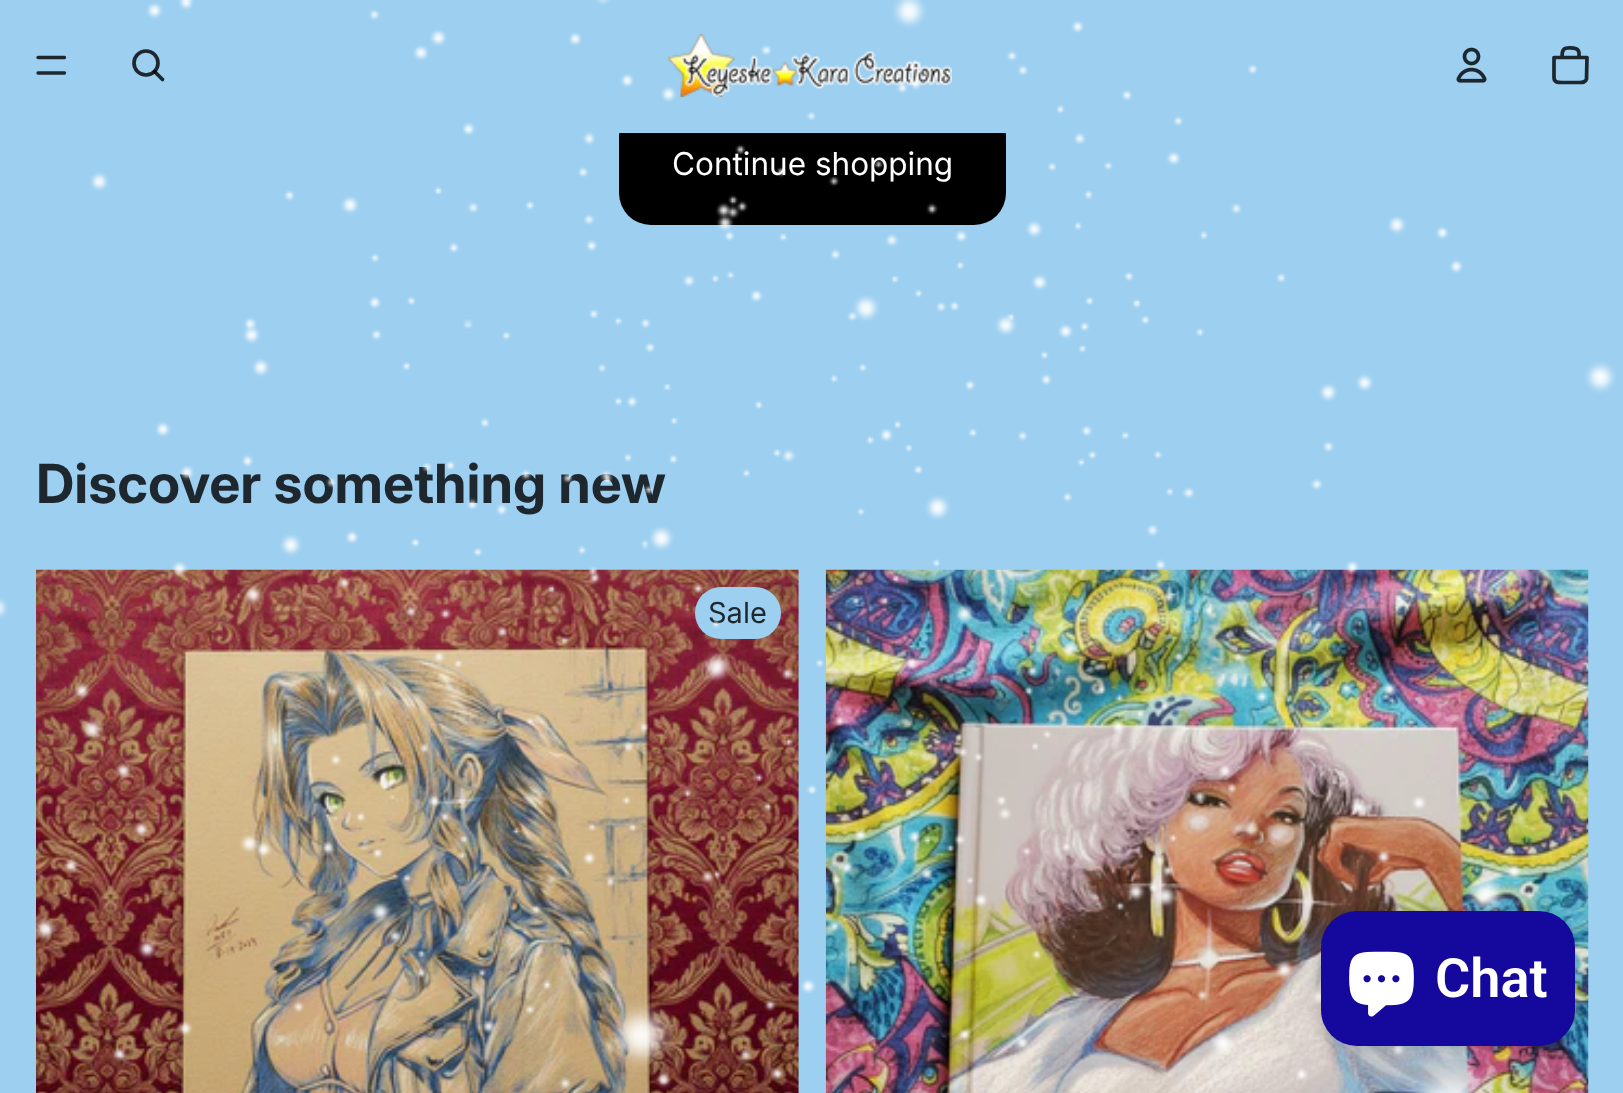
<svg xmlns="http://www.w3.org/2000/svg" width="1623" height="1093">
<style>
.a{font:31.5px Inter;fill:#fff}
.b{font:bold 54px Inter;fill:#1e272e}
.c{font:29px Inter;fill:#1e272e}
.d{font:600 54px Roboto;fill:#fff}
</style>
<rect width="100%" height="100%" fill="#9ccff0"/>
<rect fill="#000" x="619" y="104" width="387" height="121" rx="32"/>
<path fill="#9ccff0" d="M619 104h387v29H619z"/>
<path fill="none" stroke="#1e272e" stroke-width="3.3" stroke-linecap="round" d="M38 57.5h26.5m-26.5 15.5h26.5"/>
<circle fill="none" stroke="#1e272e" stroke-width="3.7" cx="146" cy="63" r="12"/>
<path fill="none" stroke="#000000cf" stroke-width="3.7" stroke-linecap="round" stroke-linejoin="round" d="M154.5 71.5l8 8"/>
<image href="2.png" x="668" y="34" width="284" height="63"/>
<image href="3.png" x="1456" y="47" width="31" height="36"/>
<path fill="none" stroke="#1e272e" stroke-width="3.7" stroke-linecap="round" stroke-linejoin="round" d="M1554 57.5h33l-.5 21.5c-1 4-5 3.5-8.5 3.5h-15c-4 0-9 .5-9-5zm13.5-9.5c4.5 0 10.5-1 11.5 4.5v5h-17c0-4 0-9.5 5.5-9.5"/>
<image href="4.png" x="36" y="569" width="763" height="524"/>
<rect fill="#9ccff0" x="695" y="587" width="86" height="52" rx="26"/>
<image href="5.png" x="825" y="569" width="764" height="524"/>
<text class="a" x="672" y="175">Continue shopping</text>
<text class="b" x="36" y="503">Discover something new</text>
<text class="c" x="708" y="623">Sale</text>
<image href="1.png" x="0" y="0" width="1617" height="1093"/>
<rect fill="#00000026" filter="blur(5.5px)" x="1321" y="911" width="254" height="135" rx="36"/>
<rect fill="#15089d" x="1321" y="911" width="254" height="135" rx="36"/>
<image href="6.png" x="1349" y="951" width="65" height="66"/>
<text class="d" x="1435" y="997">Chat</text>
</svg>
